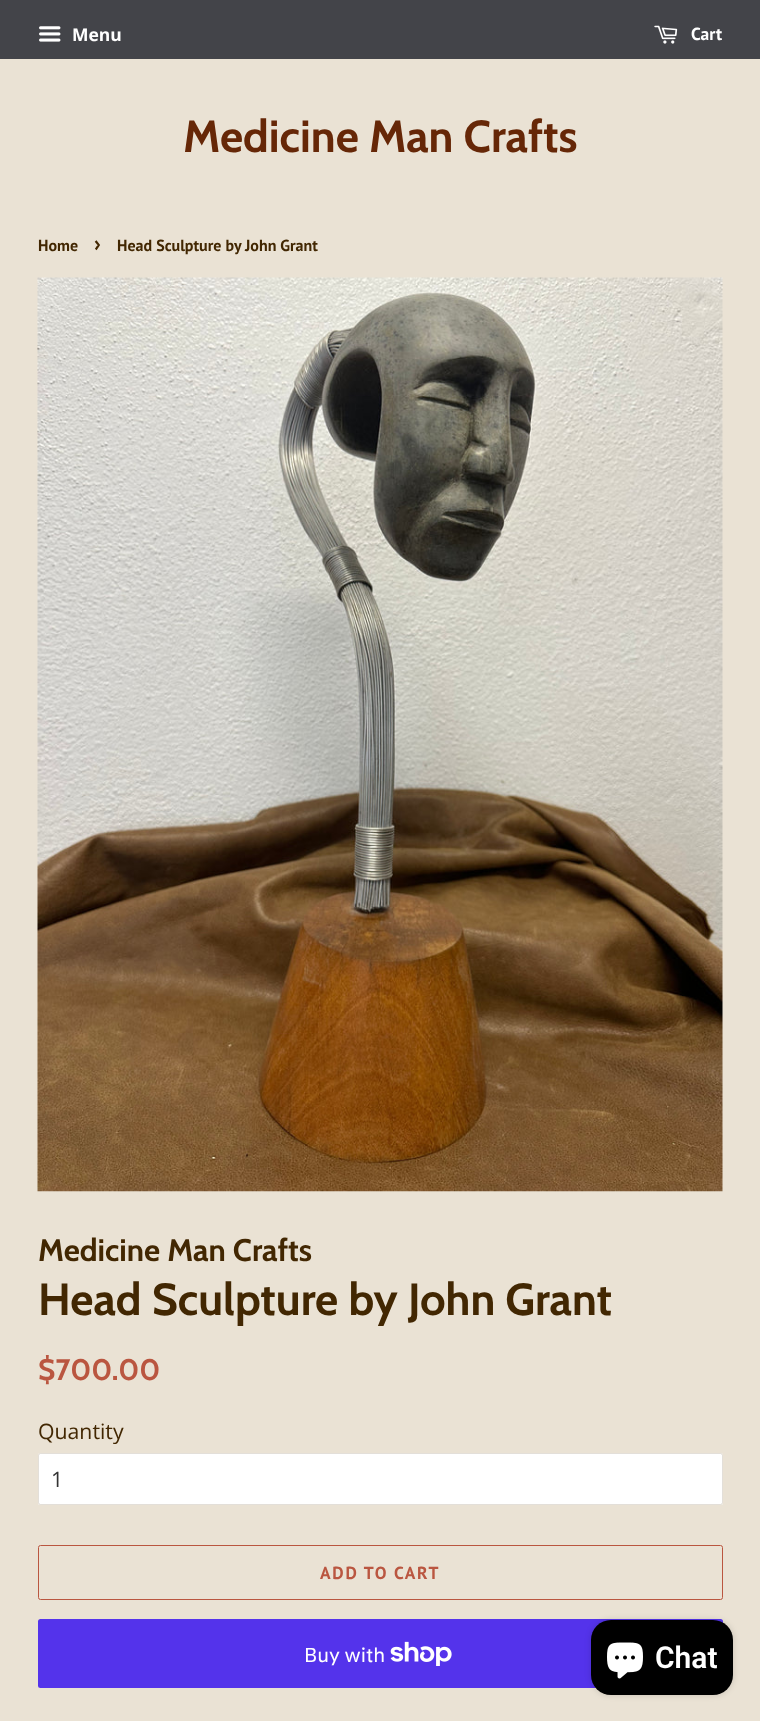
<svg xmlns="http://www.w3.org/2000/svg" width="760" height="1721">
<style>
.a{font:bold 17.5px Open Sans;fill:#fff}
.b{font:bold 17.5px PT Sans;fill:#fff}
.c{font:bold 45px Cabin;fill:#662707}
.d{font:bold 16px PT Sans;fill:#422702}
.e{font:bold 22px PT Sans;fill:#422702}
.f{font:bold 31.25px Cabin;fill:#422702}
.g{font:bold 45px Cabin;fill:#422702}
.h{font:bold 29.75px Cabin;fill:#ba5640}
.i{font:21.25px Open Sans;fill:#422702}
.j{font:21.25px Open Sans;fill:#333}
.k{font:bold 17.5px PT Sans;letter-spacing:1.75px;fill:#ba5640}
.l{font:20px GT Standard;fill:#fff}
.m{font:600 30px Roboto;fill:#fff}
</style>
<rect width="100%" height="100%" fill="#eae2d4"/>
<path fill="#434449" d="M0 0h760v59H0z"/>
<image href="1.png" x="39" y="26" width="22" height="16"/>
<image href="2.png" x="654" y="25" width="24" height="19"/>
<image href="3.png" x="37" y="277" width="686" height="915"/>
<rect fill="#fff" x="38" y="1453" width="685" height="52" rx="2.5"/>
<rect fill="none" stroke="#42270226" x="38.5" y="1453.5" width="684" height="51" rx="2"/>
<rect fill="none" stroke="#ba5640" x="38.5" y="1545.5" width="684" height="54" rx="2"/>
<rect fill="#5433eb" x="38" y="1619" width="685" height="69" rx="2.5"/>
<image href="4.png" x="390" y="1641" width="62" height="25"/>
<rect fill="#00000026" filter="blur(3px)" x="591" y="1620" width="142" height="75" rx="20"/>
<rect fill="#000" x="591" y="1620" width="142" height="75" rx="20"/>
<image href="5.png" x="607" y="1642" width="36" height="37"/>
<text class="a" x="72" y="41">Menu</text>
<text class="b" x="691" y="40">Cart</text>
<text class="c" x="183" y="152">Medicine Man Crafts</text>
<text class="d" x="38" y="251">Home</text>
<text class="e" x="94" y="251">›</text>
<text class="d" x="117" y="251">Head Sculpture by John Grant</text>
<text class="f" x="38" y="1261">Medicine Man Crafts</text>
<text class="g" x="38" y="1315">Head Sculpture by John Grant</text>
<text class="h" x="38" y="1380">$700.00</text>
<text class="i" x="38" y="1439">Quantity</text>
<text class="j" x="51" y="1487">1</text>
<text class="k" x="320" y="1579">ADD TO CART</text>
<text class="l" x="304" y="1662">Buy with</text>
<text class="m" x="655" y="1668">Chat</text>
</svg>
